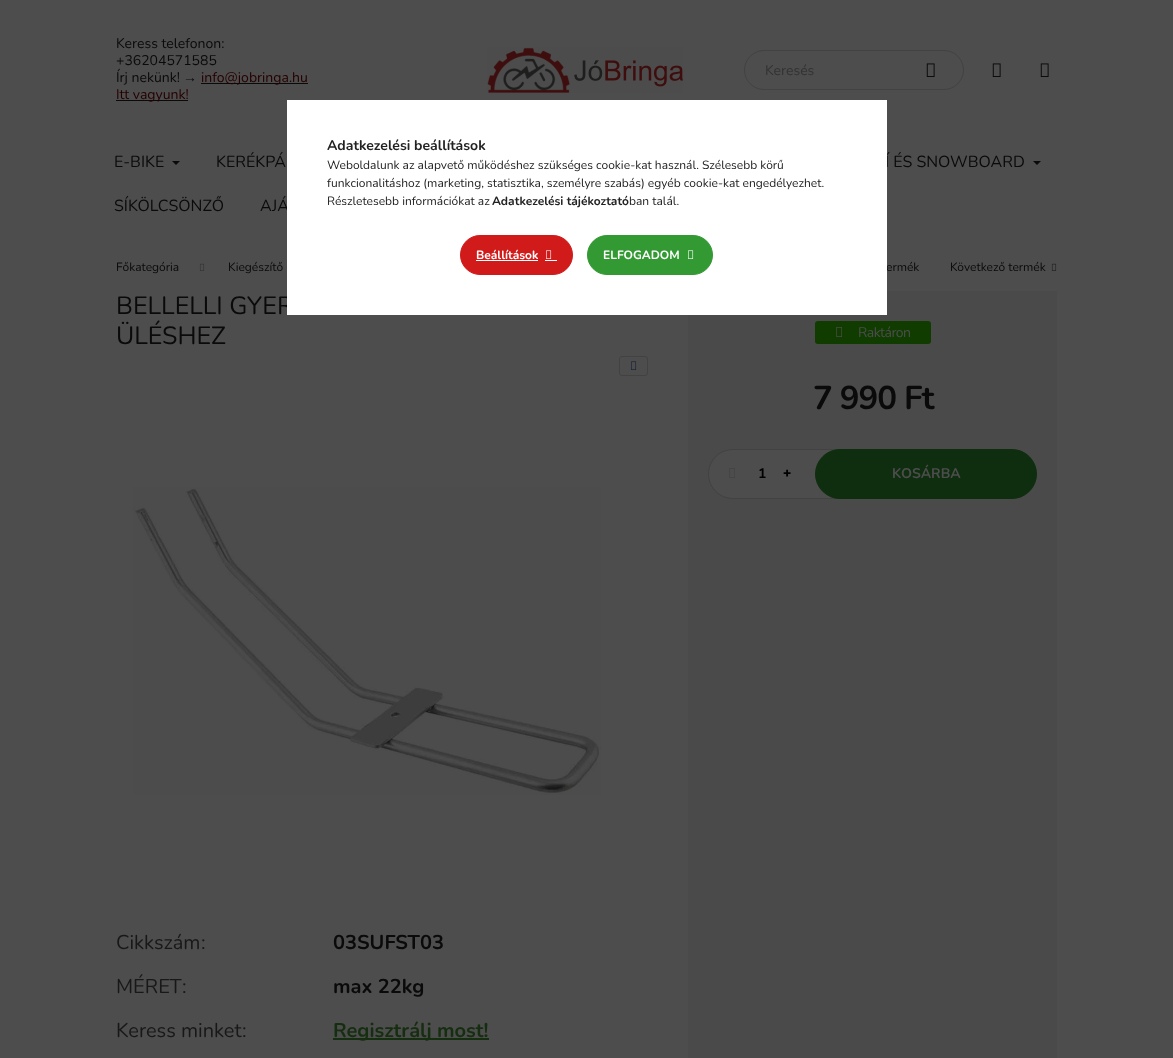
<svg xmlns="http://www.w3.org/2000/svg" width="1173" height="1058">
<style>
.a{font:14px Nunito;fill:#0a0a0a}
.b{font:14px Liberation Sans;fill:#0a0a0a}
.c{font:14px Nunito;fill:#260000}
.d{font:14px Nunito;fill:#333}
.e{font:16px Nunito;fill:#0a0a0a}
.f{font:12px Nunito;fill:#0a0a0a}
.g{font:25px Nunito;fill:#0a0a0a}
.h{font:20px Nunito;fill:#191819}
.i{font:bold 20px Nunito;fill:#0a0a0a}
.j{font:bold 20px Nunito;fill:#162e10}
.k{font:14px Nunito;letter-spacing:-0.5px;fill:#4d4d4d}
.l{font:bold 33px Nunito;letter-spacing:-1px;fill:#0a0a0a}
.m{font:bold 14px Nunito;fill:#000}
.n{font:900 14px Noto Sans;fill:#000}
.o{font:bold 14px Nunito;fill:#4d4d4d}
.p{font:bold 14px Nunito;fill:#222}
.q{font:12px Nunito;fill:#222}
.r{font:bold 12px Nunito;fill:#222}
.s{font:bold 12px Nunito;fill:#fff}
</style>
<rect width="100%" height="100%" fill="#4d4d4d"/>
<path fill="#0a0a0a" d="M201 83h107v1H201z"/>
<path fill="#0a0a0a" d="M116 100h72v1H116z"/>
<image href="1.png" x="487" y="47" width="196" height="46"/>
<rect fill="none" stroke="#424242" x="744.5" y="50.5" width="219" height="39" rx="19.5"/>
<image href="2.png" x="926" y="63" width="9" height="14"/>
<image href="2.png" x="992" y="63" width="9" height="14"/>
<image href="2.png" x="1040" y="63" width="9" height="14"/>
<path fill="#0a0a0a" d="M172 161h8l-4 4z"/>
<path fill="#0a0a0a" d="M1033 161h8l-4 4z"/>
<image href="3.png" x="199" y="263" width="6" height="8"/>
<image href="4.png" x="1051" y="263" width="6" height="8"/>
<rect fill="none" stroke="#424242" x="619.5" y="356.5" width="28" height="19" rx="2.5"/>
<image href="5.png" x="631" y="361" width="6" height="9"/>
<image href="6.png" x="133" y="487" width="468" height="308"/>
<path fill="#162e10" d="M333 1038h156v2H333z"/>
<path fill="#4a4a4a" d="M688 291h369v767H688z"/>
<rect fill="#103c00" x="815" y="321" width="116" height="23" rx="3"/>
<image href="7.png" x="836" y="327" width="7" height="10"/>
<path fill="#4d4d4d" stroke="#424242" d="M733 449.5h111.5v49h-111.5c-13.5 0-24.5-11-24.5-24.5c0-13.5 11-24.5 24.5-24.5z"/>
<image href="8.png" x="729" y="468" width="6" height="10"/>
<rect fill="#0f2e0f" stroke="#0f2e0f" x="815.5" y="449.5" width="221" height="49" rx="24.5"/>
<text class="a" x="116" y="48">Keress telefonon:</text>
<text class="a" x="116" y="65">+36204571585</text>
<text class="a" x="116" y="82">Írj nekünk!</text>
<text class="b" x="183" y="82">→</text>
<text class="c" x="201" y="82">info@jobringa.hu</text>
<text class="c" x="116" y="99">Itt vagyunk!</text>
<text class="d" x="765" y="75">Keresés</text>
<text class="e" x="114" y="167">E-BIKE</text>
<text class="e" x="216" y="167">KERÉKPÁ</text>
<text class="e" x="885" y="167">Í ÉS SNOWBOARD</text>
<text class="e" x="114" y="211">SÍKÖLCSÖNZŐ</text>
<text class="e" x="260" y="211">AJÁ</text>
<text class="f" x="116" y="271">Főkategória</text>
<text class="f" x="228" y="271">Kiegészítő</text>
<text class="f" x="886" y="271">ermék</text>
<text class="f" x="950" y="271">Következő termék</text>
<text class="g" x="116" y="314">BELLELLI GYER</text>
<text class="g" x="116" y="344">ÜLÉSHEZ</text>
<text class="h" x="116" y="949">Cikkszám</text>
<text class="h" x="201" y="949">:</text>
<text class="i" x="333" y="949">03SUFST03</text>
<text class="h" x="116" y="993">MÉRET</text>
<text class="h" x="182" y="993">:</text>
<text class="i" x="333" y="993">max 22kg</text>
<text class="h" x="116" y="1037">Keress minket</text>
<text class="h" x="242" y="1037">:</text>
<text class="j" x="333" y="1037">Regisztrálj most!</text>
<text class="k" x="858" y="337">Raktáron</text>
<text class="l" x="813" y="409">7 990 Ft</text>
<text class="m" x="758" y="478">1</text>
<text class="n" x="783" y="478">+</text>
<text class="o" x="892" y="478">KOSÁRBA</text>
<path fill="#fff" d="M287 100h600v215H287z"/>
<text class="p" x="327" y="150">Adatkezelési beállítások</text>
<text class="q" x="327" y="169">Weboldalunk az alapvető működéshez szükséges cookie-kat használ. Szélesebb körű</text>
<text class="q" x="327" y="187">funkcionalitáshoz (marketing, statisztika, személyre szabás) egyéb cookie-kat engedélyezhet.</text>
<text class="q" x="327" y="205">Részletesebb információkat az</text>
<text class="r" x="492" y="205">Adatkezelési tájékoztató</text>
<text class="q" x="629" y="205">ban talál.</text>
<rect fill="#d11b1b" stroke="#d11b1b" x="460.5" y="235.5" width="112" height="39" rx="19.5"/>
<text class="s" x="476" y="259">Beállítások</text>
<path fill="#fff" d="M476 260h62v1H476z"/>
<image href="9.png" x="546" y="250" width="6" height="9"/>
<path fill="#fff" d="M545 260h12v1H545z"/>
<rect fill="#393" stroke="#393" x="587.5" y="235.5" width="125" height="39" rx="19.5"/>
<text class="s" x="603" y="259">ELFOGADOM</text>
<image href="10.png" x="688" y="250" width="6" height="9"/>
</svg>
